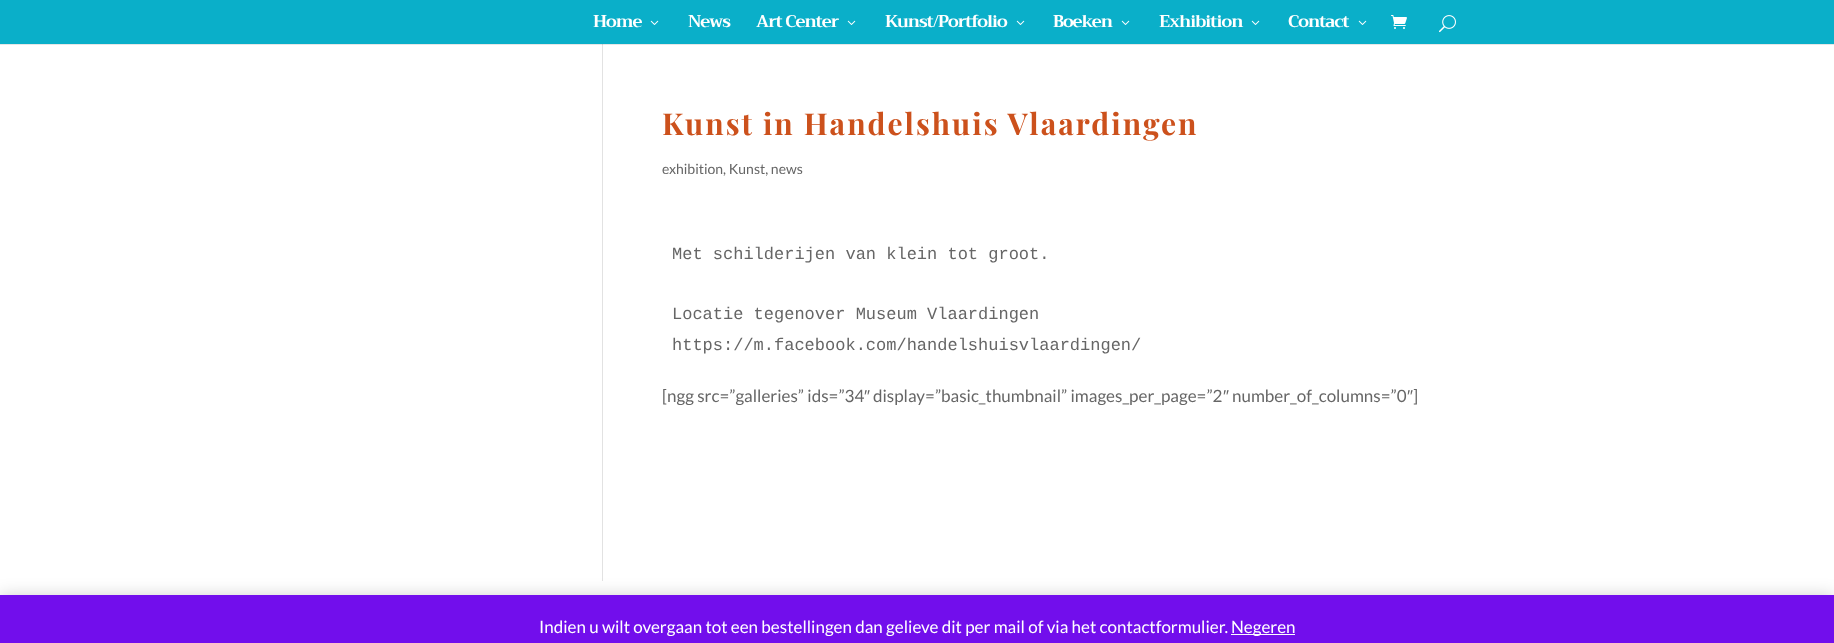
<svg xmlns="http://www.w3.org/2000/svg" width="1834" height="643">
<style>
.a{font:bold 17px Trirong;letter-spacing:-1px;fill:#fff}
.b{font:bold 30px Playfair Display;letter-spacing:2px;fill:#cc511c}
.c{font:14px Lato;fill:#666}
.d{font:17px Liberation Mono;fill:#666}
.e{font:17px Lato;fill:#666}
.f{font:17px Liberation Sans;fill:#666}
.g{font:17px Lato;fill:#fff}
</style>
<rect width="100%" height="100%" fill="#fff"/>
<path fill="#e6e6e6" d="M0 44h1834v1H0z"/>
<path fill="#0aafc9" d="M0 0h1834v44H0z"/>
<image href="1.png" x="650" y="20" width="9" height="5"/>
<image href="1.png" x="847" y="20" width="9" height="5"/>
<image href="1.png" x="1016" y="20" width="9" height="5"/>
<image href="1.png" x="1121" y="20" width="9" height="5"/>
<image href="1.png" x="1251" y="20" width="9" height="5"/>
<image href="1.png" x="1358" y="20" width="9" height="5"/>
<image href="2.png" x="1391" y="15" width="16" height="14"/>
<image href="3.png" x="1439" y="15" width="17" height="18"/>
<path fill="#e2e2e2" d="M602 44h1v537H602z"/>
<path fill="#cbcbcb" d="M602 44h1v1H602z"/>
<path fill="#00000033" filter="blur(8.5px)" d="M0 596h1834v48H0z"/>
<path fill="#720eec" d="M0 595h1834v48H0z"/>
<path fill="#fcfbfe" d="M1231 634h64v1H1231z"/>
<text class="a" x="593" y="27">Home</text>
<text class="a" x="688" y="27">News</text>
<text class="a" x="756" y="27">Art Center</text>
<text class="a" x="885" y="27">Kunst/Portfolio</text>
<text class="a" x="1053" y="27">Boeken</text>
<text class="a" x="1159" y="27">Exhibition</text>
<text class="a" x="1288" y="27">Contact</text>
<text class="b" x="662" y="135">Kunst in Handelshuis Vlaardingen</text>
<text class="c" x="662" y="174">exhibition, Kunst, news</text>
<text class="d" x="672" y="259">Met schilderijen van klein tot groot.</text>
<text class="d" x="672" y="319">Locatie tegenover Museum Vlaardingen</text>
<text class="d" x="672" y="350">https://m.facebook.com/handelshuisvlaardingen/</text>
<text class="e" x="662" y="402">[ngg src=”galleries” ids=”34</text>
<text class="f" x="864" y="402">″</text>
<text class="e" x="873" y="402">display=”basic_thumbnail” images_per_page=”2</text>
<text class="f" x="1223" y="402">″</text>
<text class="e" x="1232" y="402">number_of_columns=”0</text>
<text class="f" x="1407" y="402">″</text>
<text class="e" x="1413" y="402">]</text>
<text class="g" x="539" y="633">Indien u wilt overgaan tot een bestellingen dan gelieve dit per mail of via het contactformulier.</text>
<text class="g" x="1231" y="633">Negeren</text>
</svg>
